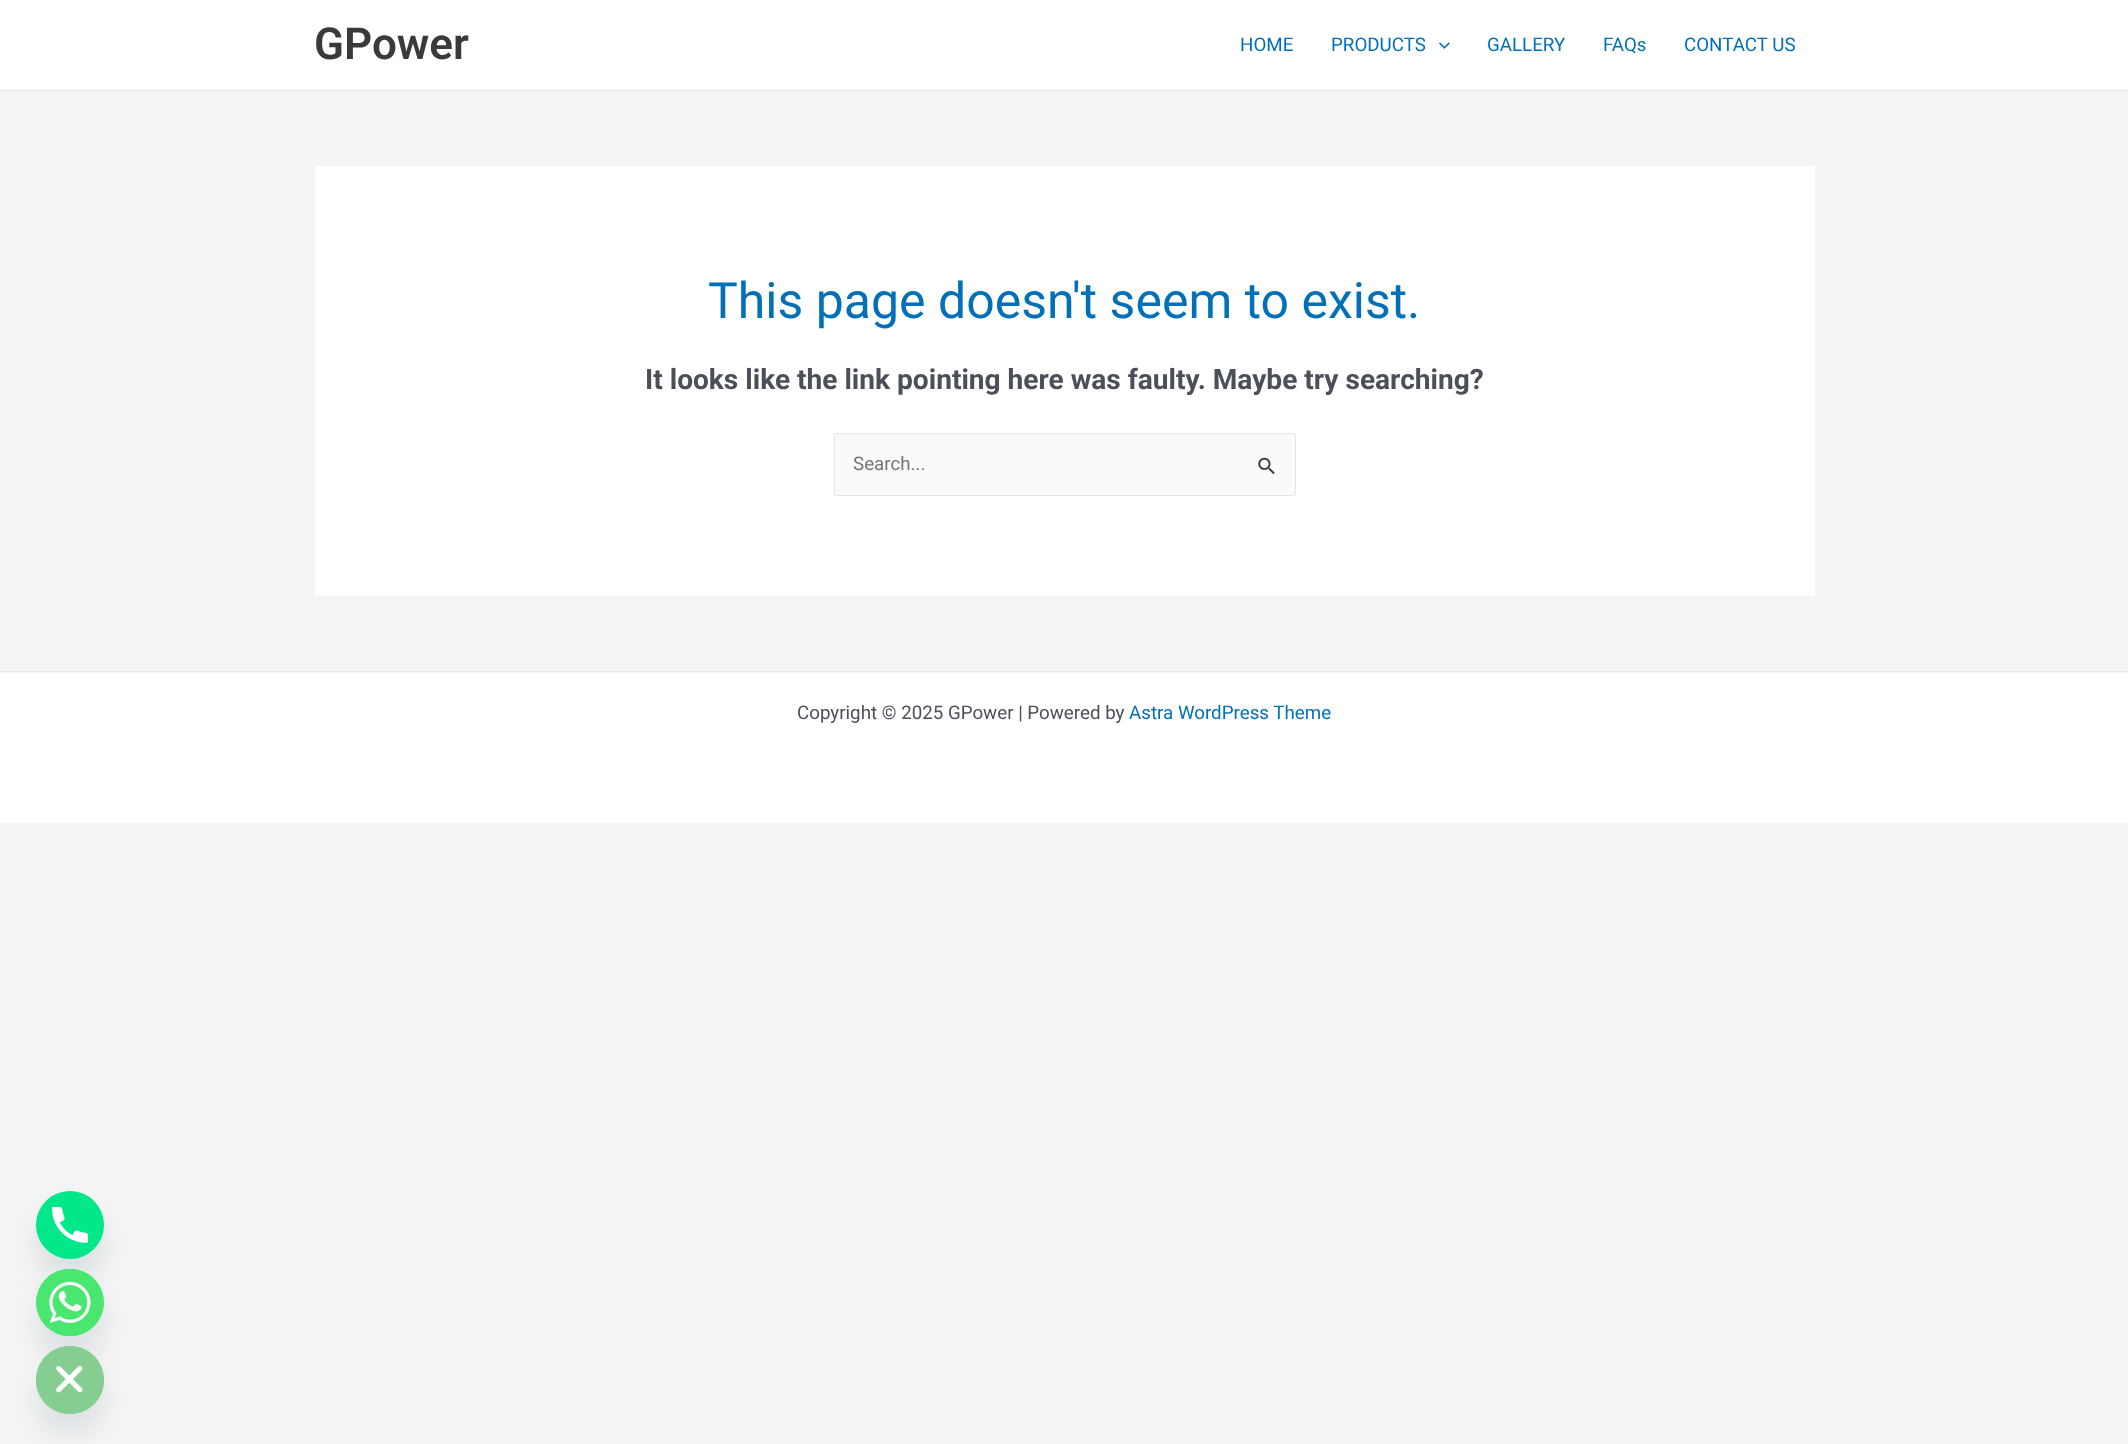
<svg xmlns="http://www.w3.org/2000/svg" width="2128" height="1444">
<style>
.a{font:600 44px Roboto;fill:#3a3a3a}
.b{font:18.75px Roboto;fill:#0170b9}
.c{font:50px Roboto;fill:#0170b9}
.d{font:bold 28.1px Roboto;fill:#4b4f58}
.e{font:18.75px Roboto;fill:#757575}
.f{font:18.75px Roboto;fill:#4b4f58}
</style>
<rect width="100%" height="100%" fill="#f5f5f5"/>
<path fill="#fff" d="M0 0h2128v90H0z"/>
<path fill="#e5e5e5" d="M0 90h2128v1H0z"/>
<image href="1.png" x="1439" y="42" width="11" height="7"/>
<path fill="#fff" d="M315 166h1500v430H315z"/>
<rect fill="#fafafa" stroke="#e5e5e5" x="834.5" y="433.5" width="461" height="62" rx="2"/>
<image href="2.png" x="1258" y="457" width="17" height="18"/>
<path fill="#fff" d="M0 673h2128v150H0z"/>
<path fill="#e5e5e5" d="M0 671h2128v1H0z"/>
<rect fill="#49687e29" filter="blur(15px)" x="36" y="1211" width="68" height="68" rx="34"/>
<circle fill="#03e78b" cx="70" cy="1225" r="34"/>
<image href="3.png" x="36" y="1191" width="68" height="68"/>
<rect fill="#49687e29" filter="blur(15px)" x="36" y="1289" width="68" height="67" rx="33.5"/>
<rect fill="#49e670" x="36" y="1269" width="68" height="67" rx="33.5"/>
<image href="4.png" x="36" y="1269" width="68" height="67"/>
<rect fill="#49687e29" filter="blur(15px)" x="36" y="1366" width="68" height="68" rx="34"/>
<path fill="#86cd91" d="M70 1414c-19 0-34-15-34-34c0-19 15-34 34-34c19 0 34 15 34 34c0 19-15 34-34 34z"/>
<image href="5.png" x="36" y="1346" width="68" height="68"/>
<text class="a" x="314" y="59">GPower</text>
<text class="b" x="1240" y="51">HOME</text>
<text class="b" x="1331" y="51">PRODUCTS</text>
<text class="b" x="1487" y="51">GALLERY</text>
<text class="b" x="1603" y="51">FAQs</text>
<text class="b" x="1684" y="51">CONTACT US</text>
<text class="c" x="708" y="318">This page doesn't seem to exist.</text>
<text class="d" x="645" y="389">It looks like the link pointing here was faulty. Maybe try searching?</text>
<text class="e" x="853" y="470">Search...</text>
<text class="f" x="797" y="719">Copyright © 2025 GPower | Powered by</text>
<text class="b" x="1129" y="719">Astra WordPress Theme</text>
</svg>
